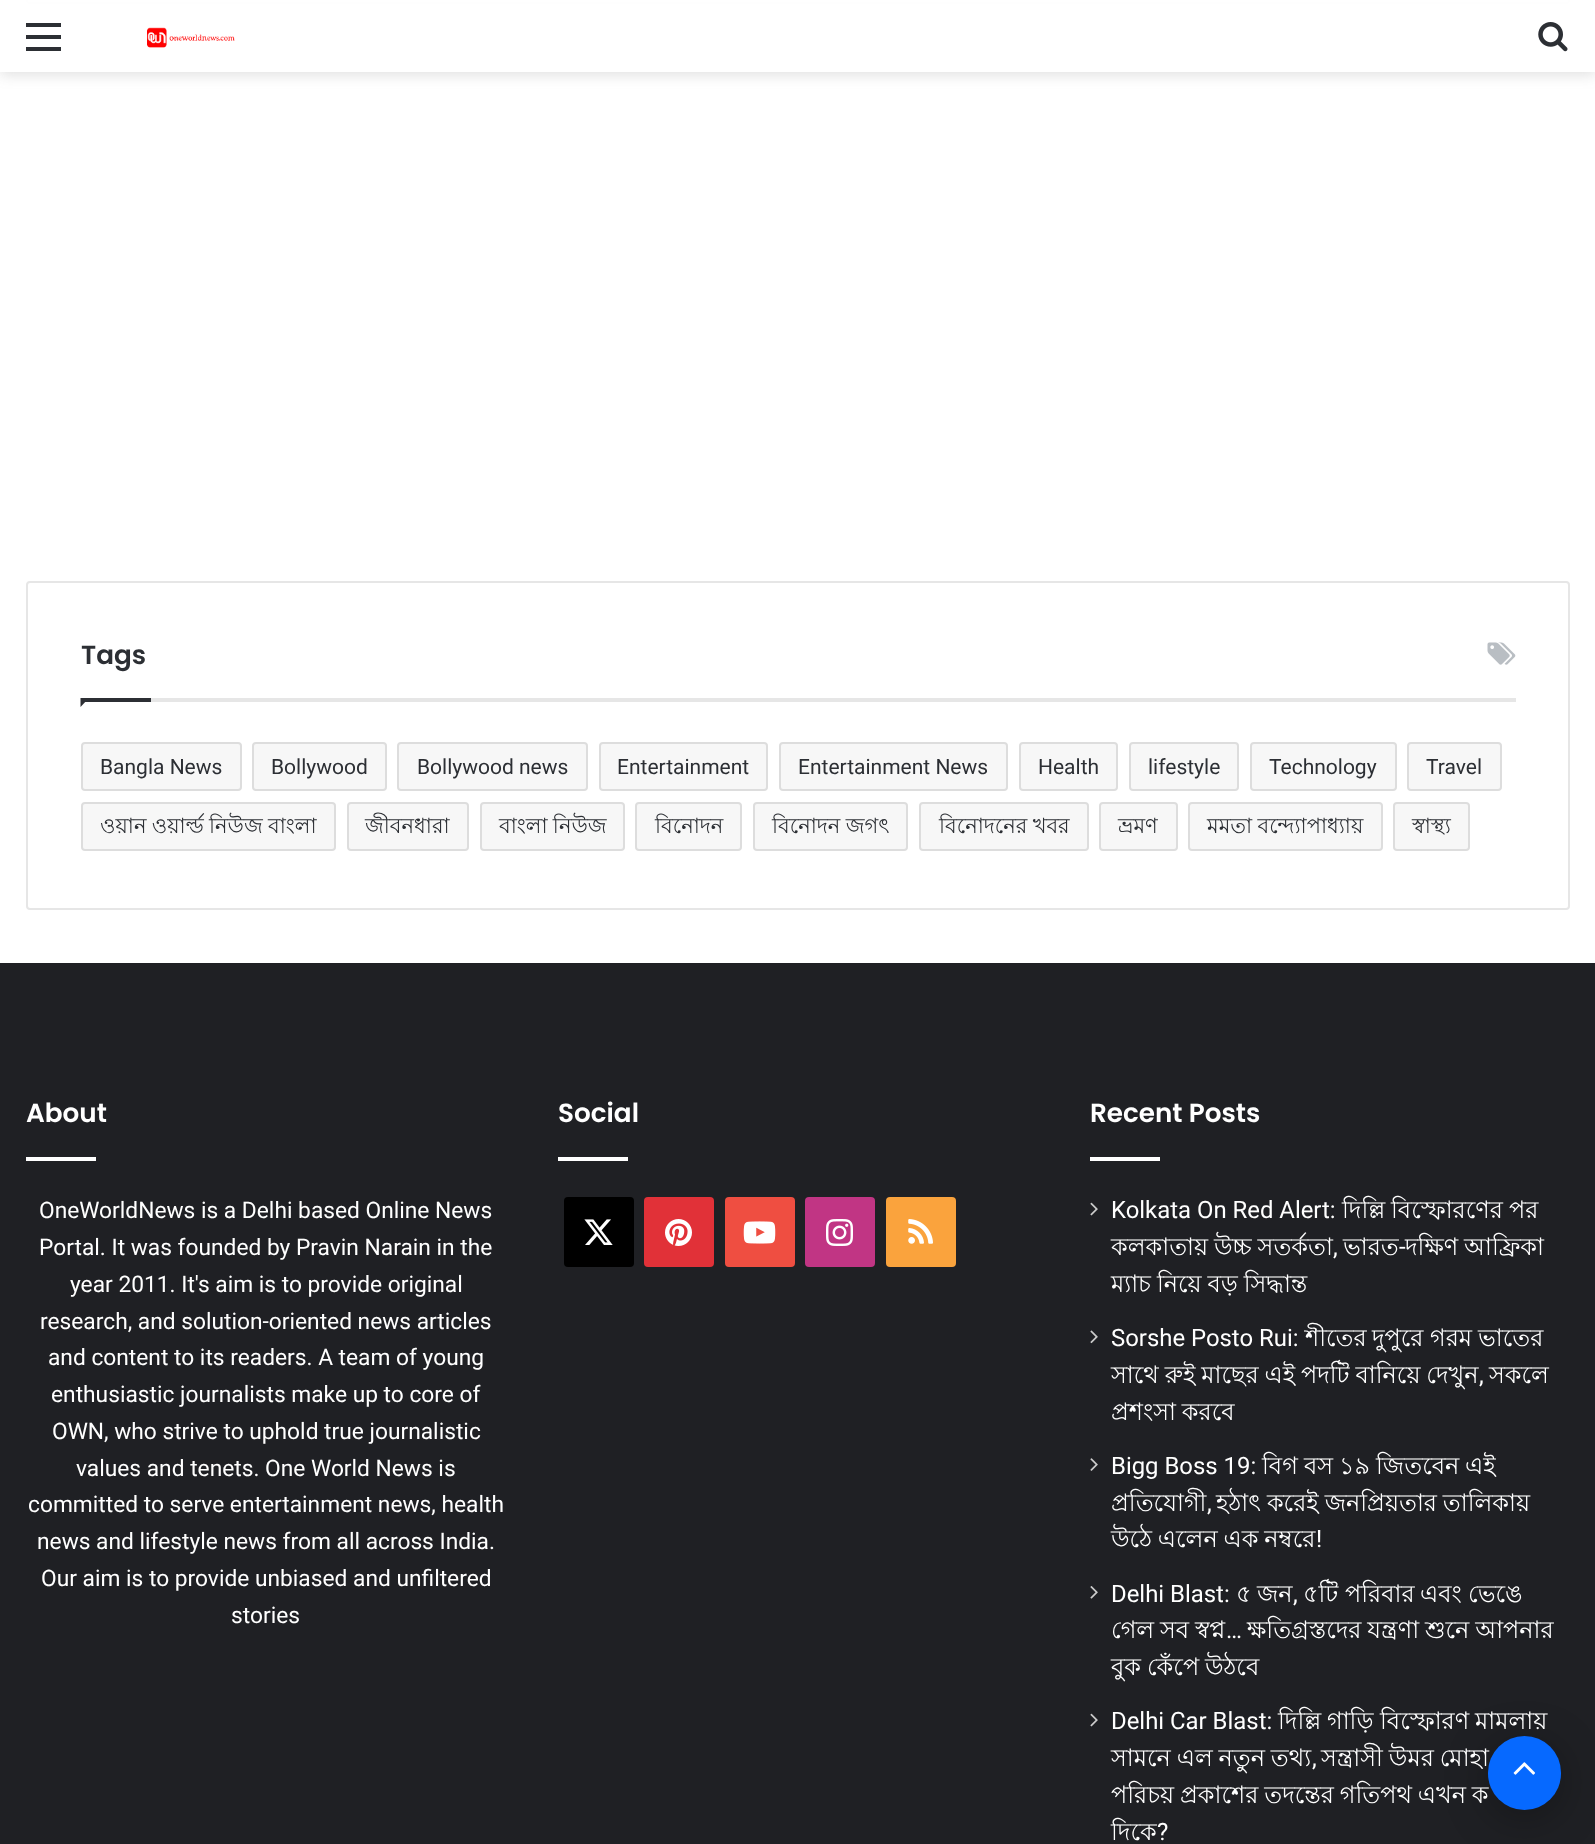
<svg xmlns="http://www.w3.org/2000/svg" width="1595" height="1844">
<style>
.a{font:600 26.25px Poppins;fill:#2c2f34}
.b{font:21px Roboto;fill:#2c2f34}
.c{font:21px Lohit Bengali;fill:#2c2f34}
.d{font:600 26.25px Poppins;fill:#fff}
.e{font:22.75px Roboto;fill:#fff}
.f{font:23.9px Roboto;fill:#fff}
.g{font:23.9px Lohit Bengali;fill:#fff}
</style>
<defs>
<clipPath id="clip1"><path d="M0 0h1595v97h-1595zm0 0h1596v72h-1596z" clip-rule="evenodd"/></clipPath>
</defs>
<rect width="100%" height="100%" fill="#fff"/>
<rect fill="none" stroke="#e6e6e6" stroke-width="2" x="27" y="-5" width="1542" height="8" rx="3"/>
<g clip-path="url(#clip1)">
<path fill="#63636333" filter="blur(7px)" d="M0 4h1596v71H0z"/>
</g>
<path fill="#fffffff2" d="M0 0h1595v72H0z"/>
<path fill="#2c2f34" d="M26 35h35v4H26z"/>
<path fill="#2c2f34" d="M26 23h35v4H26z"/>
<path fill="#2c2f34" d="M26 47h35v4H26z"/>
<image href="1.png" x="147" y="27" width="88" height="21"/>
<image href="2.png" x="1538" y="22" width="30" height="30"/>
<rect fill="none" stroke="#e6e6e6" stroke-width="2" x="27" y="582" width="1542" height="327" rx="3"/>
<path fill="#e6e6e6" d="M151 698h1365v4H151z"/>
<image href="3.png" x="1487" y="642" width="29" height="23"/>
<path fill="#2c2f34" d="M80.5 698h8.5l-8.5 9z"/>
<path fill="#2c2f34" d="M81 698h70v4H81z"/>
<rect fill="#f7f7f7" x="81" y="742" width="161" height="49" rx="4"/>
<rect fill="none" stroke="#0000001a" stroke-width="2" x="82" y="743" width="159" height="47" rx="3"/>
<rect fill="#f7f7f7" x="252" y="742" width="135" height="49" rx="4"/>
<rect fill="none" stroke="#0000001a" stroke-width="2" x="253" y="743" width="133" height="47" rx="3"/>
<rect fill="#f7f7f7" x="397" y="742" width="191" height="49" rx="4"/>
<rect fill="none" stroke="#0000001a" stroke-width="2" x="398" y="743" width="189" height="47" rx="3"/>
<rect fill="#f7f7f7" x="599" y="742" width="169" height="49" rx="4"/>
<rect fill="none" stroke="#0000001a" stroke-width="2" x="600" y="743" width="167" height="47" rx="3"/>
<rect fill="#f7f7f7" x="779" y="742" width="229" height="49" rx="4"/>
<rect fill="none" stroke="#0000001a" stroke-width="2" x="780" y="743" width="227" height="47" rx="3"/>
<rect fill="#f7f7f7" x="1019" y="742" width="99" height="49" rx="4"/>
<rect fill="none" stroke="#0000001a" stroke-width="2" x="1020" y="743" width="97" height="47" rx="3"/>
<rect fill="#f7f7f7" x="1129" y="742" width="110" height="49" rx="4"/>
<rect fill="none" stroke="#0000001a" stroke-width="2" x="1130" y="743" width="108" height="47" rx="3"/>
<rect fill="#f7f7f7" x="1250" y="742" width="147" height="49" rx="4"/>
<rect fill="none" stroke="#0000001a" stroke-width="2" x="1251" y="743" width="145" height="47" rx="3"/>
<rect fill="#f7f7f7" x="1407" y="742" width="95" height="49" rx="4"/>
<rect fill="none" stroke="#0000001a" stroke-width="2" x="1408" y="743" width="93" height="47" rx="3"/>
<rect fill="#f7f7f7" x="81" y="802" width="255" height="49" rx="4"/>
<rect fill="none" stroke="#0000001a" stroke-width="2" x="82" y="803" width="253" height="47" rx="3"/>
<rect fill="#f7f7f7" x="347" y="802" width="122" height="49" rx="4"/>
<rect fill="none" stroke="#0000001a" stroke-width="2" x="348" y="803" width="120" height="47" rx="3"/>
<rect fill="#f7f7f7" x="480" y="802" width="145" height="49" rx="4"/>
<rect fill="none" stroke="#0000001a" stroke-width="2" x="481" y="803" width="143" height="47" rx="3"/>
<rect fill="#f7f7f7" x="635" y="802" width="107" height="49" rx="4"/>
<rect fill="none" stroke="#0000001a" stroke-width="2" x="636" y="803" width="105" height="47" rx="3"/>
<rect fill="#f7f7f7" x="753" y="802" width="155" height="49" rx="4"/>
<rect fill="none" stroke="#0000001a" stroke-width="2" x="754" y="803" width="153" height="47" rx="3"/>
<rect fill="#f7f7f7" x="919" y="802" width="170" height="49" rx="4"/>
<rect fill="none" stroke="#0000001a" stroke-width="2" x="920" y="803" width="168" height="47" rx="3"/>
<rect fill="#f7f7f7" x="1099" y="802" width="79" height="49" rx="4"/>
<rect fill="none" stroke="#0000001a" stroke-width="2" x="1100" y="803" width="77" height="47" rx="3"/>
<rect fill="#f7f7f7" x="1188" y="802" width="195" height="49" rx="4"/>
<rect fill="none" stroke="#0000001a" stroke-width="2" x="1189" y="803" width="193" height="47" rx="3"/>
<rect fill="#f7f7f7" x="1393" y="802" width="77" height="49" rx="4"/>
<rect fill="none" stroke="#0000001a" stroke-width="2" x="1394" y="803" width="75" height="47" rx="3"/>
<path fill="#1f2024" d="M0 963h1595v881H0z"/>
<path fill="#fff" d="M26 1157h70v4H26z"/>
<path fill="#fff" d="M558 1157h70v4H558z"/>
<rect fill="#000" x="564" y="1197" width="70" height="70" rx="4"/>
<image href="4.png" x="584" y="1219" width="29" height="26"/>
<rect fill="#e13138" x="644" y="1197" width="70" height="70" rx="4"/>
<image href="5.png" x="665" y="1219" width="27" height="27"/>
<rect fill="#ef4e41" x="725" y="1197" width="70" height="70" rx="4"/>
<image href="6.png" x="743" y="1221" width="33" height="23"/>
<rect fill="#c13584" x="805" y="1197" width="70" height="70" rx="4"/>
<image href="7.png" x="826" y="1219" width="27" height="27"/>
<rect fill="#faa33d" x="886" y="1197" width="70" height="70" rx="4"/>
<image href="8.png" x="908" y="1219" width="25" height="25"/>
<path fill="#fff" d="M1090 1157h70v4H1090z"/>
<image href="9.png" x="1090" y="1202" width="8" height="14"/>
<image href="10.png" x="1090" y="1330" width="8" height="14"/>
<image href="11.png" x="1090" y="1458" width="8" height="13"/>
<image href="12.png" x="1090" y="1586" width="8" height="13"/>
<image href="9.png" x="1090" y="1713" width="8" height="14"/>
<rect fill="#0000004d" filter="blur(22px)" x="1488" y="1745" width="73" height="73" rx="36.5"/>
<text class="a" x="81" y="664">Tags</text>
<text class="b" x="100" y="774">Bangla News</text>
<text class="b" x="271" y="774">Bollywood</text>
<text class="b" x="417" y="774">Bollywood news</text>
<text class="b" x="617" y="774">Entertainment</text>
<text class="b" x="798" y="774">Entertainment News</text>
<text class="b" x="1038" y="774">Health</text>
<text class="b" x="1148" y="774">lifestyle</text>
<text class="b" x="1269" y="774">Technology</text>
<text class="b" x="1426" y="774">Travel</text>
<text class="c" x="100" y="833" word-spacing="-0.5">ওয়ান ওয়ার্ল্ড নিউজ বাংলা</text>
<text class="c" x="365" y="833">জীবনধারা</text>
<text class="c" x="499" y="833" word-spacing="-0.5">বাংলা নিউজ</text>
<text class="c" x="655" y="833">বিনোদন</text>
<text class="c" x="772" y="833" word-spacing="-0.5">বিনোদন জগৎ</text>
<text class="c" x="939" y="833" word-spacing="-0.5">বিনোদনের খবর</text>
<text class="c" x="1118" y="833">ভ্রমণ</text>
<text class="c" x="1207" y="833" word-spacing="-0.5">মমতা বন্দ্যোপাধ্যায়</text>
<text class="c" x="1412" y="833">স্বাস্থ্য</text>
<text class="d" x="26" y="1122">About</text>
<text class="e" x="39" y="1218">OneWorldNews is a Delhi based Online News</text>
<text class="e" x="39" y="1255">Portal. It was founded by Pravin Narain in the</text>
<text class="e" x="70" y="1292">year 2011. It's aim is to provide original</text>
<text class="e" x="40" y="1329">research, and solution-oriented news articles</text>
<text class="e" x="48" y="1365">and content to its readers. A team of young</text>
<text class="e" x="51" y="1402">enthusiastic journalists make up to core of</text>
<text class="e" x="52" y="1439">OWN, who strive to uphold true journalistic</text>
<text class="e" x="76" y="1476">values and tenets. One World News is</text>
<text class="e" x="28" y="1512">committed to serve entertainment news, health</text>
<text class="e" x="37" y="1549">news and lifestyle news from all across India.</text>
<text class="e" x="41" y="1586">Our aim is to provide unbiased and unfiltered</text>
<text class="e" x="231" y="1623">stories</text>
<text class="d" x="558" y="1122">Social</text>
<text class="d" x="1090" y="1122">Recent Posts</text>
<text class="f" x="1111" y="1218">Kolkata On Red Alert:</text>
<text class="g" x="1342" y="1218">দিল্লি</text>
<text class="g" x="1391" y="1218">বিস্ফোরণের</text>
<text class="g" x="1509" y="1218">পর</text>
<text class="g" x="1111" y="1255" word-spacing="-0.75">কলকাতায় উচ্চ সতর্কতা</text>
<text class="g" x="1343" y="1255">ভারত</text>
<text class="f" x="1399" y="1255">-</text>
<text class="g" x="1405" y="1255" word-spacing="-0.75">দক্ষিণ আফ্রিকা</text>
<text class="f" x="1333" y="1255">,</text>
<text class="g" x="1111" y="1292" word-spacing="-0.75">ম্যাচ নিয়ে বড় সিদ্ধান্ত</text>
<text class="f" x="1111" y="1346">Sorshe Posto Rui:</text>
<text class="g" x="1305" y="1346">শীতের</text>
<text class="g" x="1372" y="1346">দুপুরে</text>
<text class="g" x="1430" y="1346">গরম</text>
<text class="g" x="1478" y="1346">ভাতের</text>
<text class="g" x="1111" y="1383" word-spacing="-0.75">সাথে রুই মাছের এই পদটি বানিয়ে দেখুন</text>
<text class="f" x="1479" y="1383">,</text>
<text class="g" x="1489" y="1383">সকলে</text>
<text class="g" x="1111" y="1420" word-spacing="-0.75">প্রশংসা করবে</text>
<text class="f" x="1111" y="1474">Bigg Boss 19:</text>
<text class="g" x="1262" y="1474">বিগ</text>
<text class="g" x="1304" y="1474">বস</text>
<text class="g" x="1339" y="1474">১৯</text>
<text class="g" x="1376" y="1474">জিতবেন</text>
<text class="g" x="1465" y="1474">এই</text>
<text class="g" x="1111" y="1511">প্রতিযোগী</text>
<text class="f" x="1207" y="1511">,</text>
<text class="g" x="1216" y="1511" word-spacing="-0.75">হঠাৎ করেই জনপ্রিয়তার তালিকায়</text>
<text class="g" x="1111" y="1547" word-spacing="-0.75">উঠে এলেন এক নম্বরে</text>
<text class="f" x="1316" y="1547">!</text>
<text class="f" x="1111" y="1602">Delhi Blast:</text>
<text class="g" x="1236" y="1602">৫</text>
<text class="g" x="1257" y="1602">জন</text>
<text class="f" x="1293" y="1602">,</text>
<text class="g" x="1303" y="1602">৫টি</text>
<text class="g" x="1345" y="1602">পরিবার</text>
<text class="g" x="1420" y="1602">এবং</text>
<text class="g" x="1468" y="1602">ভেঙে</text>
<text class="g" x="1111" y="1638" word-spacing="-0.75">গেল সব স্বপ্ন</text>
<text class="f" x="1226" y="1638">…</text>
<text class="g" x="1247" y="1638" word-spacing="-0.75">ক্ষতিগ্রস্তদের যন্ত্রণা শুনে আপনার</text>
<text class="g" x="1111" y="1675" word-spacing="-0.75">বুক কেঁপে উঠবে</text>
<text class="f" x="1111" y="1729">Delhi Car Blast:</text>
<text class="g" x="1278" y="1729">দিল্লি</text>
<text class="g" x="1327" y="1729">গাড়ি</text>
<text class="g" x="1380" y="1729">বিস্ফোরণ</text>
<text class="g" x="1475" y="1729">মামলায়</text>
<text class="g" x="1111" y="1766" word-spacing="-0.75">সামনে এল নতুন তথ্য</text>
<text class="f" x="1312" y="1766">,</text>
<text class="g" x="1321" y="1766" word-spacing="-0.75">সন্ত্রাসী উমর মোহা</text>
<text class="g" x="1111" y="1803" word-spacing="-0.75">পরিচয় প্রকাশের তদন্তের গতিপথ এখন ক</text>
<text class="g" x="1111" y="1840">দিকে</text>
<text class="f" x="1157" y="1840">?</text>
<rect fill="#0669ff" x="1488" y="1736" width="73" height="74" rx="36.5"/>
<image href="13.png" x="1513" y="1762" width="22" height="13"/>
</svg>
